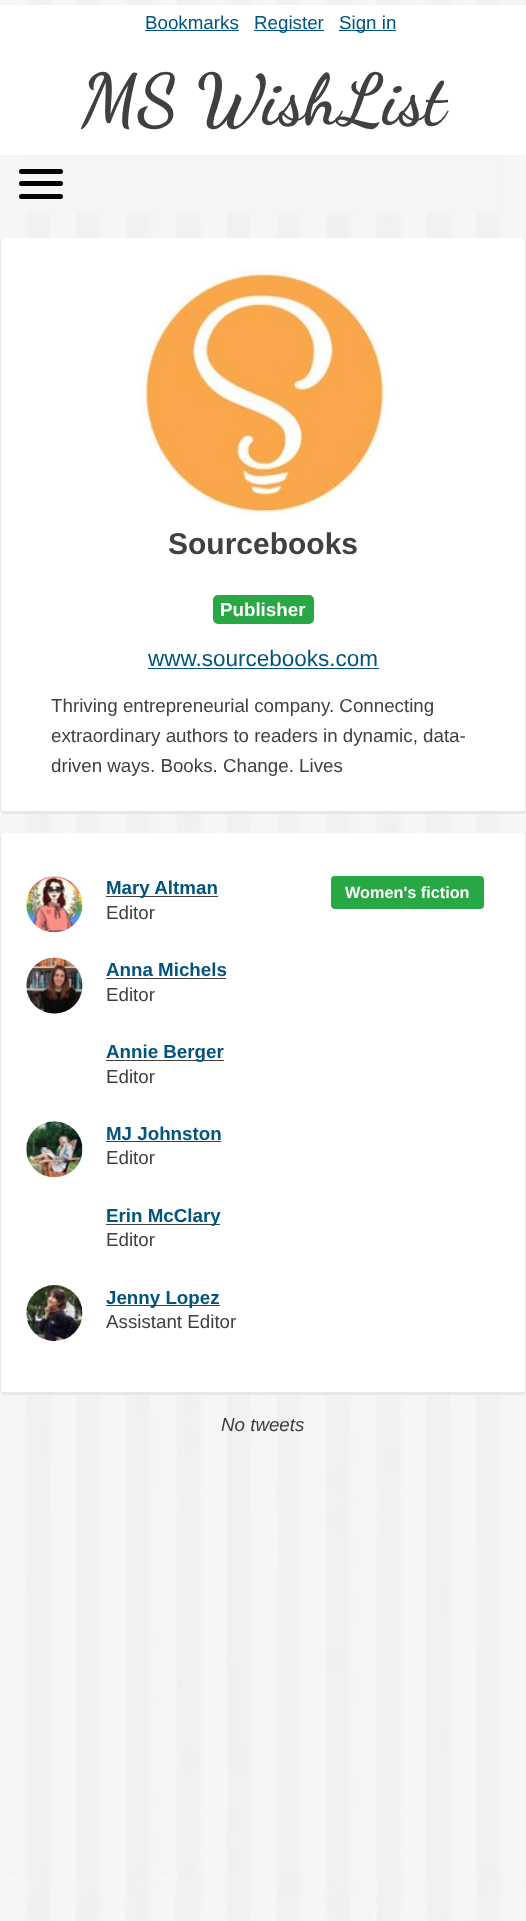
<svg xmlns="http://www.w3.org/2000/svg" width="526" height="1921">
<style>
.a{font:18.75px Liberation Sans;fill:#00547e}
.b{font:bold 71.25px Dancing Script;fill:#404040}
.c{font:bold 30px Liberation Sans;fill:#404040}
.d{font:bold 18.75px Liberation Sans;fill:#fff}
.e{font:22.5px Liberation Sans;fill:#00547e}
.f{font:18.75px Liberation Sans;fill:#404040}
.g{font:bold 18.75px Liberation Sans;fill:#00547e}
.h{font:bold 16.25px Liberation Sans;fill:#fff}
.i{font:italic 18.75px Liberation Sans;fill:#404040}
</style>
<rect width="100%" height="100%" fill="#fff"/>
<image href="1.png" x="0" y="0" width="526" height="1921"/>
<path fill="#fff" d="M0 5h526v150H0z"/>
<path fill="#00547e" d="M145 30h94v1H145z"/>
<path fill="#00547e" d="M254 30h70v1H254z"/>
<path fill="#00547e" d="M339 30h57v1H339z"/>
<path fill="#f5f5f5" d="M27 155h473v58H27z"/>
<rect fill="#000" x="19" y="181" width="44" height="5" rx="2.5"/>
<rect fill="#000" x="19" y="169" width="44" height="5" rx="2.5"/>
<rect fill="#000" x="19" y="194" width="44" height="5" rx="2.5"/>
<rect fill="#fff" y="238" width="526" height="576" rx="4"/>
<path fill="#e7e7e7" fill-rule="evenodd" d="M4 238h518c3 0 4 1 4 3v569c0 2-1 4-4 4h-518c-2 0-4-2-4-4v-569c0-2 2-3 4-3zm0 0h518c2 0 3 1 3 3v569c0 1-1 1-3 1h-518c-2 0-3 0-3-1v-569c0-2 1-3 3-3z"/>
<image href="2.png" x="139" y="268" width="249" height="249"/>
<rect fill="#28a745" x="213" y="595" width="101" height="29" rx="5"/>
<path fill="#00547e" d="M148 668h231v1H148z"/>
<rect fill="#fff" y="833" width="526" height="562" rx="4"/>
<path fill="#e7e7e7" fill-rule="evenodd" d="M4 832h518c3 0 4 2 4 4v555c0 2-1 4-4 4h-518c-2 0-4-2-4-4v-555c0-2 2-4 4-4zm0 0h518c2 0 3 2 3 4v555c0 1-1 1-3 1h-518c-2 0-3 0-3-1v-555c0-2 1-4 3-4z"/>
<image href="3.png" x="26" y="876" width="57" height="57"/>
<path fill="#404040" d="M106 896h112v1H106z"/>
<rect fill="#28a745" x="331" y="876" width="153" height="33" rx="4"/>
<image href="4.png" x="26" y="957" width="57" height="57"/>
<path fill="#404040" d="M106 978h120v1H106z"/>
<path fill="#404040" d="M106 1060h118v1H106z"/>
<image href="5.png" x="26" y="1121" width="57" height="57"/>
<path fill="#404040" d="M106 1141h115v1H106z"/>
<path fill="#404040" d="M106 1224h114v1H106z"/>
<image href="6.png" x="26" y="1285" width="57" height="57"/>
<path fill="#404040" d="M106 1305h114v1H106z"/>
<text class="a" x="145" y="29">Bookmarks</text>
<text class="a" x="254" y="29">Register</text>
<text class="a" x="339" y="29">Sign in</text>
<text class="b" x="81" y="123">MS WishList</text>
<text class="c" x="168" y="554">Sourcebooks</text>
<text class="d" x="220" y="616">Publisher</text>
<text class="e" x="148" y="666">www.sourcebooks.com</text>
<text class="f" x="51" y="712">Thriving entrepreneurial company. Connecting</text>
<text class="f" x="51" y="742">extraordinary authors to readers in dynamic, data-</text>
<text class="f" x="51" y="772">driven ways. Books. Change. Lives</text>
<text class="g" x="106" y="894">Mary Altman</text>
<text class="f" x="106" y="919">Editor</text>
<text class="h" x="345" y="898">Women's fiction</text>
<text class="g" x="106" y="976">Anna Michels</text>
<text class="f" x="106" y="1001">Editor</text>
<text class="g" x="106" y="1058">Annie Berger</text>
<text class="f" x="106" y="1083">Editor</text>
<text class="g" x="106" y="1140">MJ Johnston</text>
<text class="f" x="106" y="1164">Editor</text>
<text class="g" x="106" y="1222">Erin McClary</text>
<text class="f" x="106" y="1246">Editor</text>
<text class="g" x="106" y="1304">Jenny Lopez</text>
<text class="f" x="106" y="1328">Assistant Editor</text>
<text class="i" x="221" y="1431">No tweets</text>
</svg>
